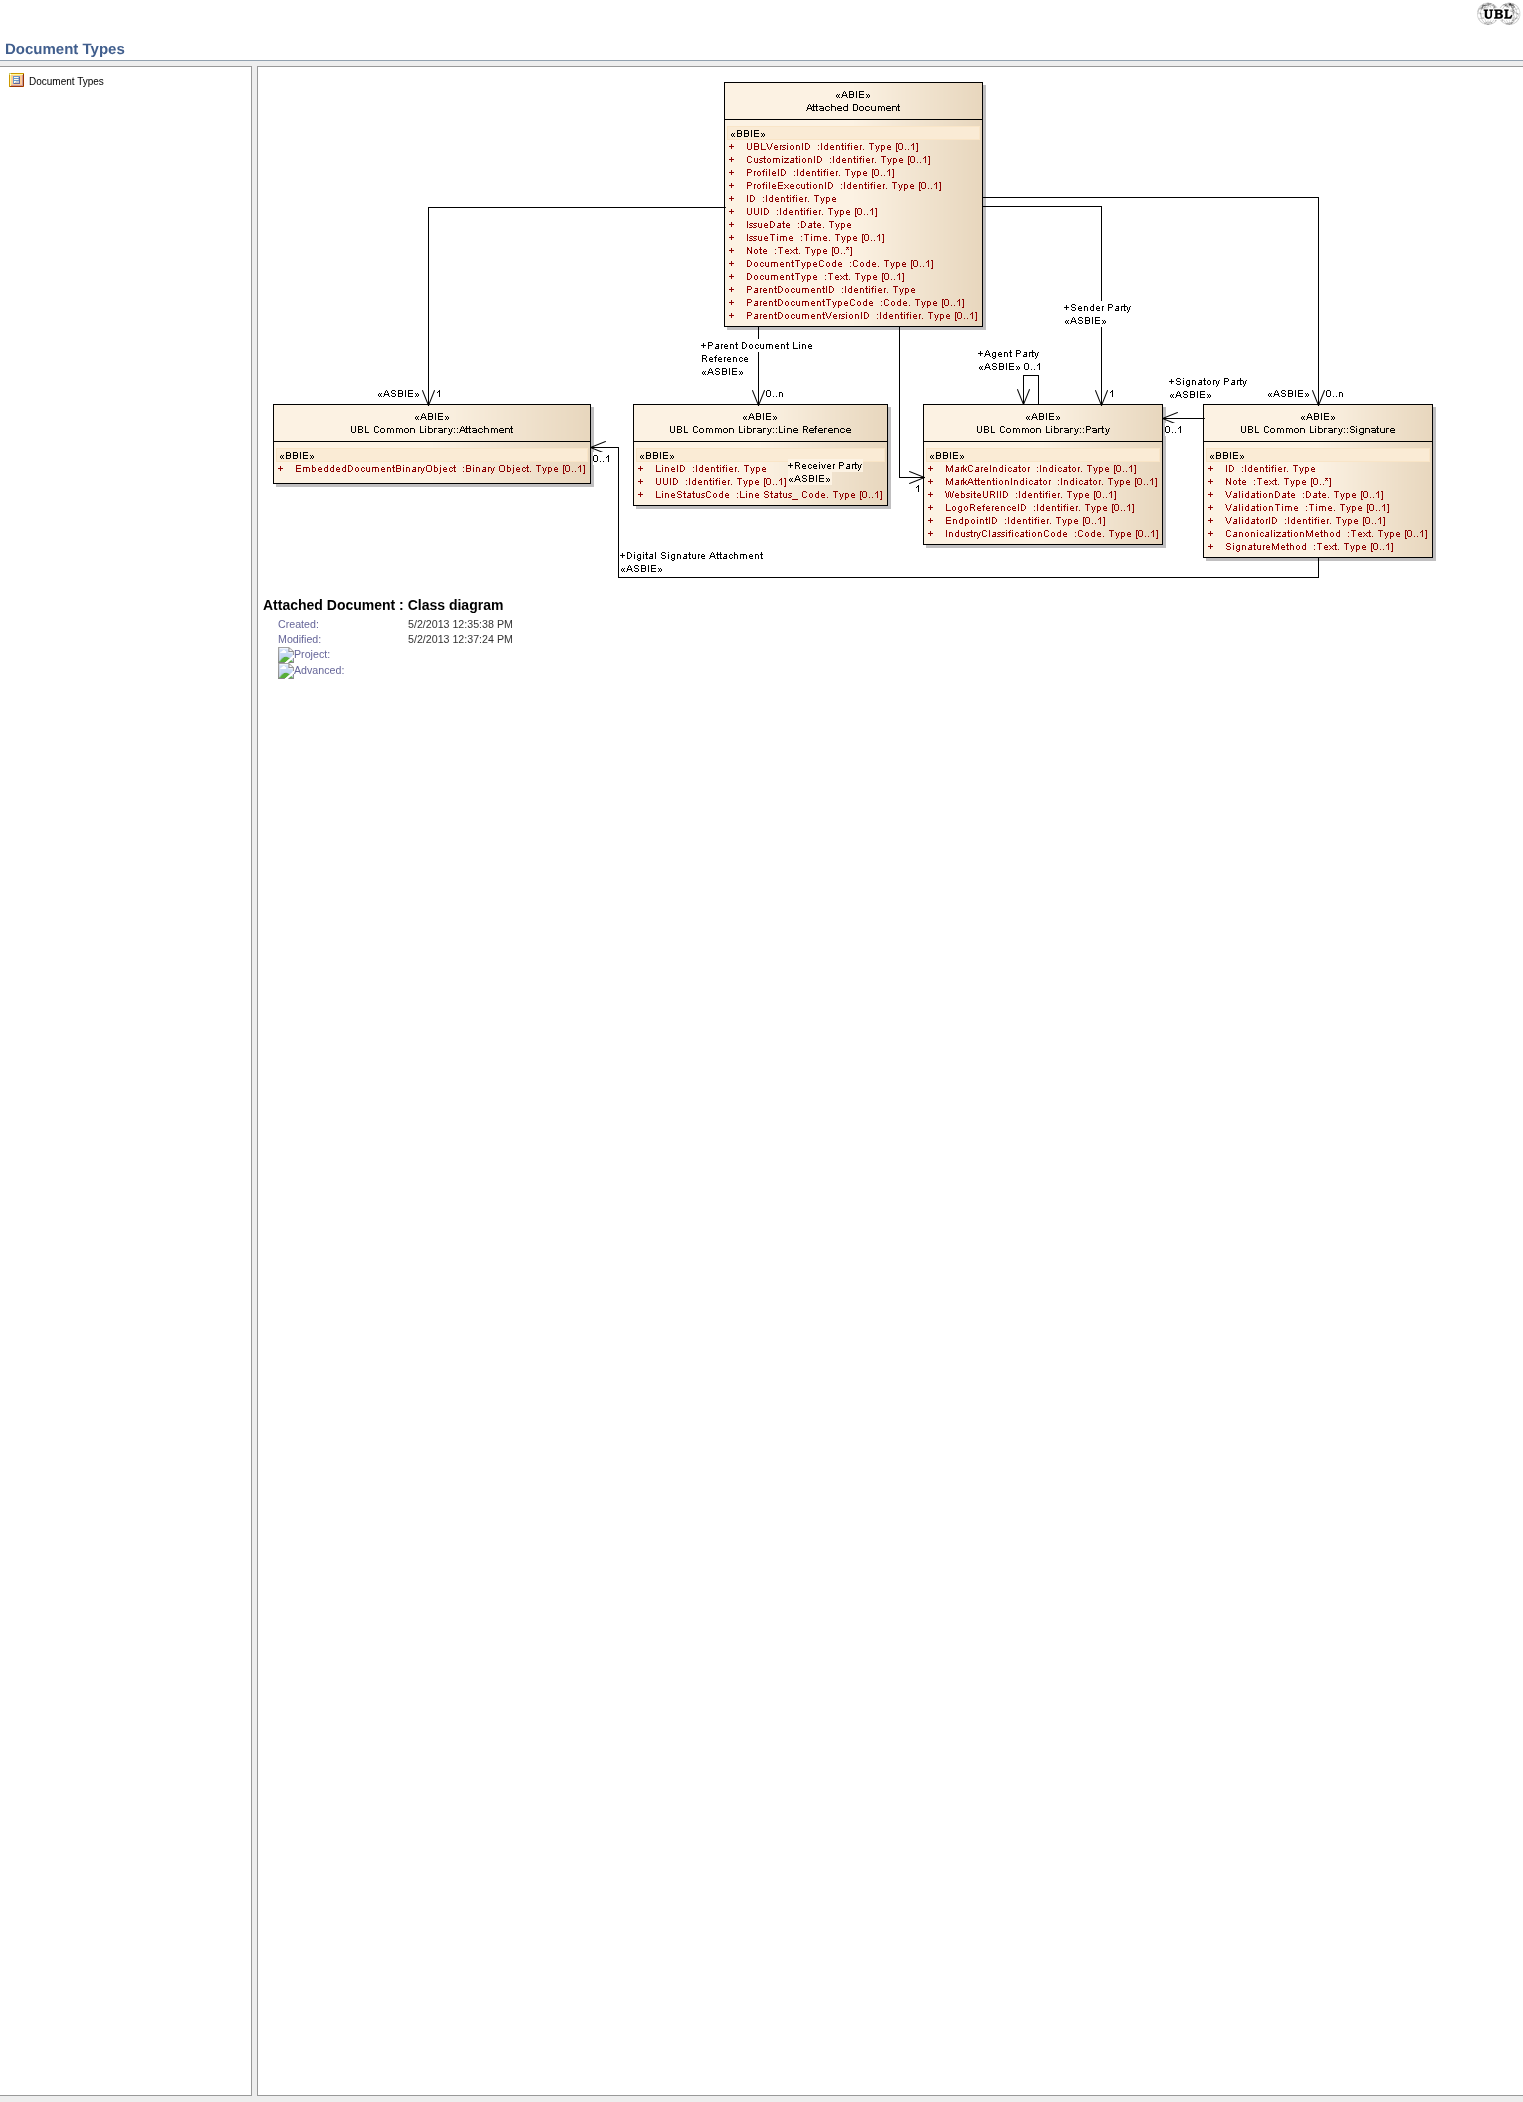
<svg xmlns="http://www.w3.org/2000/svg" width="1523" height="2102">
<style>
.a{font:bold 15px Liberation Sans;fill:#405e8d}
</style>
<rect width="100%" height="100%" fill="#eee"/>
<path fill="#fff" d="M0 0h1523v60H0z"/>
<path fill="#92a1af" d="M0 60h1523v1H0z"/>
<image href="1.png" x="1477" y="2" width="44" height="23"/>
<path fill="#999" d="M0 66h252v1H0z"/>
<path fill="#fff" d="M0 67h251v2028H0z"/>
<path fill="#999" d="M251 66h1v2030H251z"/>
<path fill="#999" d="M257 66h1266v1H257z"/>
<path fill="#999" d="M257 2095h1266v1H257z"/>
<path fill="#999" d="M257 66h1v2030H257z"/>
<image href="2.png" x="258" y="67" width="1265" height="2028"/>
<image href="3.png" x="9" y="73" width="95" height="14"/>
<path fill="#999" d="M0 2095h252v1H0z"/>
<text class="a" x="5" y="54">Document Types</text>
</svg>
